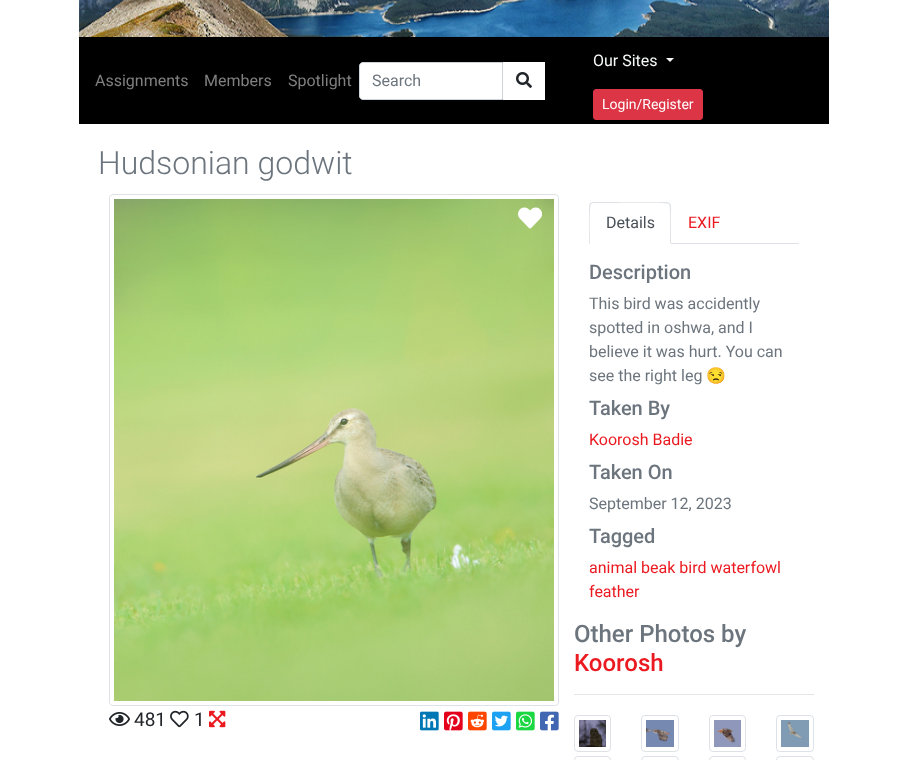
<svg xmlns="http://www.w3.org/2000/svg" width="907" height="760">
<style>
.a{font:16px Roboto;fill:#808080}
.b{font:16px Roboto;fill:#6c757d}
.c{font:16px Roboto;fill:#f8f9fa}
.d{font:14px Roboto;fill:#fff}
.e{font:300 32px Roboto;fill:#6c757d}
.f{font:16px Roboto;fill:#495057}
.g{font:16px Roboto;fill:#eb1a21}
.h{font:500 20px Roboto;fill:#6c757d}
.i{font:16px Noto Color Emoji;fill:#6c757d}
.j{font:500 24px Roboto;fill:#6c757d}
.k{font:500 24px Roboto;fill:#eb1a21}
.l{font:19px Roboto;fill:#212529}
</style>
<rect width="100%" height="100%" fill="#fff"/>
<image href="1.png" x="79" y="0" width="750" height="37"/>
<path fill="#000" d="M79 37h750v87H79z"/>
<path fill="#fff" stroke="#ced4da" d="M363 62.5h139.5v37h-139.5c-2 0-3.5-1.5-3.5-3.5v-30c0-2 1.5-3.5 3.5-3.5z"/>
<path fill="#fff" d="M503 62h42v38H503z"/>
<image href="2.png" x="516" y="72" width="16" height="16"/>
<path fill="#f8f9fa" d="M666 58h8l-4 4z"/>
<rect fill="#dc3545" stroke="#dc3545" x="593.5" y="89.5" width="109" height="30" rx="2.5"/>
<path fill="#dee2e6" d="M671 243h128v1H671z"/>
<path fill="#dee2e6" d="M593 202l-3 1l1 1l2-1h12c7 0 62-1 64 1l1-1l-3-1z"/>
<path fill="#dee2e6" d="M671 244v-38c0-1-1-2-1-3l-1 1c2 2 1 34 1 39z"/>
<path fill="#fff" d="M671 244l-1-1h-80l-1 1z"/>
<path fill="#dee2e6" d="M589 244l1-1c0-5-1-37 1-39l-1-1l-1 3z"/>
<path fill="#e6e6e6" d="M574 694h240v1H574z"/>
<rect fill="none" stroke="#dee2e6" x="574.5" y="715.5" width="36" height="36" rx="3.5"/>
<image href="3.png" x="579" y="720" width="27" height="27"/>
<rect fill="none" stroke="#dee2e6" x="641.5" y="715.5" width="37" height="36" rx="3.5"/>
<image href="4.png" x="646" y="720" width="28" height="27"/>
<rect fill="none" stroke="#dee2e6" x="709.5" y="715.5" width="36" height="36" rx="3.5"/>
<image href="5.png" x="714" y="720" width="27" height="27"/>
<rect fill="none" stroke="#dee2e6" x="776.5" y="715.5" width="37" height="36" rx="3.5"/>
<image href="6.png" x="781" y="720" width="28" height="27"/>
<rect fill="none" stroke="#dee2e6" x="574.5" y="756.5" width="36" height="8" rx="3.5"/>
<rect fill="none" stroke="#dee2e6" x="641.5" y="756.5" width="37" height="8" rx="3.5"/>
<rect fill="none" stroke="#dee2e6" x="709.5" y="756.5" width="36" height="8" rx="3.5"/>
<rect fill="none" stroke="#dee2e6" x="776.5" y="756.5" width="37" height="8" rx="3.5"/>
<rect fill="none" stroke="#dee2e6" x="109.5" y="194.5" width="449" height="511" rx="3.5"/>
<image href="7.png" x="114" y="199" width="440" height="502"/>
<image href="8.png" x="518" y="207" width="24" height="22"/>
<image href="9.png" x="109" y="712" width="21" height="14"/>
<image href="10.png" x="170" y="710" width="19" height="18"/>
<image href="11.png" x="209" y="710" width="17" height="18"/>
<image href="12.png" x="420" y="711" width="19" height="20"/>
<image href="13.png" x="444" y="711" width="19" height="20"/>
<image href="14.png" x="468" y="711" width="19" height="20"/>
<image href="15.png" x="492" y="711" width="19" height="20"/>
<image href="16.png" x="516" y="711" width="19" height="20"/>
<image href="17.png" x="540" y="711" width="19" height="20"/>
<text class="a" x="95" y="86">Assignments</text>
<text class="a" x="204" y="86">Members</text>
<text class="a" x="288" y="86">Spotlight</text>
<text class="b" x="372" y="86">Search</text>
<text class="c" x="593" y="66">Our Sites</text>
<text class="d" x="602" y="109">Login/Register</text>
<text class="e" x="98" y="174">Hudsonian godwit</text>
<text class="f" x="606" y="228">Details</text>
<text class="g" x="688" y="228">EXIF</text>
<text class="h" x="589" y="279">Description</text>
<text class="b" x="589" y="309">This bird was accidently</text>
<text class="b" x="589" y="333">spotted in oshwa, and I</text>
<text class="b" x="589" y="357">believe it was hurt. You can</text>
<text class="b" x="589" y="381">see the right leg</text>
<text class="i" x="706" y="381">😒</text>
<text class="h" x="589" y="415">Taken By</text>
<text class="g" x="589" y="445">Koorosh Badie</text>
<text class="h" x="589" y="479">Taken On</text>
<text class="b" x="589" y="509">September 12, 2023</text>
<text class="h" x="589" y="543">Tagged</text>
<text class="g" x="589" y="573">animal beak bird waterfowl</text>
<text class="g" x="589" y="597">feather</text>
<text class="j" x="574" y="642">Other Photos by</text>
<text class="k" x="574" y="671">Koorosh</text>
<text class="l" x="134" y="726">481</text>
<text class="l" x="194" y="726">1</text>
</svg>
